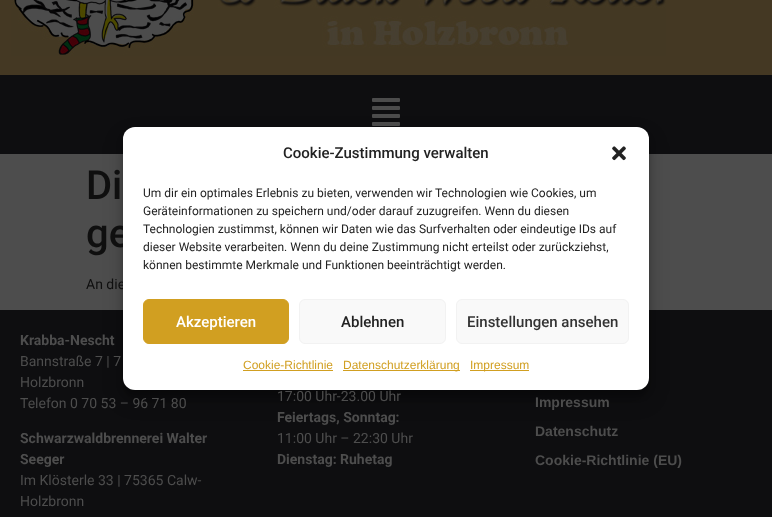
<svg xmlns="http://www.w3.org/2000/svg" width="772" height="517">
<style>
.a{font:500 40px Roboto;fill:#0f0f0f}
.b{font:14px Roboto;fill:#0f0f0f}
.c{font:12px Roboto;fill:#222}
.d{font:12px Liberation Sans;fill:#d19f21}
.e{font:500 15px Roboto;fill:#333}
.f{font:500 15px Roboto;fill:#222}
.g{font:500 15px Roboto;fill:#fff}
.h{font:bold 14px Roboto;fill:#4d4d4d}
.i{font:14px Roboto;fill:#4d4d4d}
.j{font:bold 14px Liberation Sans;fill:#4d4d4d}
</style>
<rect width="100%" height="100%" fill="#4d4d4d"/>
<path fill="#0e0e10" d="M0 75h772v79H0z"/>
<image href="3.png" x="372" y="98" width="28" height="28"/>
<path fill="#0e0e10" d="M0 310h772v207H0z"/>
<rect fill="#0000003b" filter="blur(3px)" x="123" y="133" width="526" height="263" rx="12"/>
<rect fill="#00000030" filter="blur(10px)" x="123" y="137" width="526" height="263" rx="12"/>
<path fill="#443823" d="M0 0h772v75H0z"/>
<image href="2.png" x="11" y="0" width="655" height="56"/>
<text class="a" x="86" y="199">Di</text>
<text class="a" x="86" y="247">ge</text>
<text class="b" x="86" y="289">An die</text>
<rect fill="#fff" x="123" y="127" width="526" height="263" rx="12"/>
<text class="c" x="143" y="269">können bestimmte Merkmale und Funktionen beeinträchtigt werden.</text>
<text class="c" x="143" y="251">dieser Website verarbeiten. Wenn du deine Zustimmung nicht erteilst oder zurückziehst,</text>
<text class="c" x="143" y="233">Technologien zustimmst, können wir Daten wie das Surfverhalten oder eindeutige IDs auf</text>
<text class="c" x="143" y="215">Geräteinformationen zu speichern und/oder darauf zuzugreifen. Wenn du diesen</text>
<text class="c" x="143" y="197">Um dir ein optimales Erlebnis zu bieten, verwenden wir Technologien wie Cookies, um</text>
<image href="1.png" x="612" y="146" width="14" height="15"/>
<path fill="#d19f21" d="M470 370h59v1H470z"/>
<text class="d" x="470" y="369">Impressum</text>
<path fill="#d19f21" d="M343 370h117v1H343z"/>
<text class="d" x="343" y="369">Datenschutzerklärung</text>
<text class="d" x="243" y="369">Cookie-Richtlinie</text>
<path fill="#d19f21" d="M243 370h90v1H243z"/>
<rect fill="#f9f9f9" stroke="#f2f2f2" x="456.5" y="299.5" width="172" height="44" rx="5.5"/>
<text class="e" x="467" y="327">Einstellungen ansehen</text>
<rect fill="#f9f9f9" stroke="#f2f2f2" x="299.5" y="299.5" width="146" height="44" rx="5.5"/>
<text class="f" x="341" y="327">Ablehnen</text>
<rect fill="#d19f21" stroke="#d19f21" x="143.5" y="299.5" width="145" height="44" rx="5.5"/>
<text class="g" x="176" y="327">Akzeptieren</text>
<text class="f" x="283" y="158">Cookie-Zustimmung verwalten</text>
<text class="h" x="20" y="345">Krabba-Nescht</text>
<text class="i" x="20" y="366">Bannstraße 7 | 7</text>
<text class="i" x="20" y="387">Holzbronn</text>
<text class="i" x="20" y="408">Telefon 0 70 53 – 96 71 80</text>
<text class="h" x="20" y="443">Schwarzwaldbrennerei Walter</text>
<text class="h" x="20" y="464">Seeger</text>
<text class="i" x="20" y="485">Im Klösterle 33 | 75365 Calw-</text>
<text class="i" x="20" y="506">Holzbronn</text>
<text class="i" x="277" y="401">17:00 Uhr-23.00 Uhr</text>
<text class="h" x="277" y="422">Feiertags, Sonntag:</text>
<text class="i" x="277" y="443">11:00 Uhr – 22:30 Uhr</text>
<text class="h" x="277" y="464">Dienstag: Ruhetag</text>
<text class="j" x="535" y="407">Impressum</text>
<text class="j" x="535" y="436">Datenschutz</text>
<text class="j" x="535" y="465">Cookie-Richtlinie (EU)</text>
</svg>
